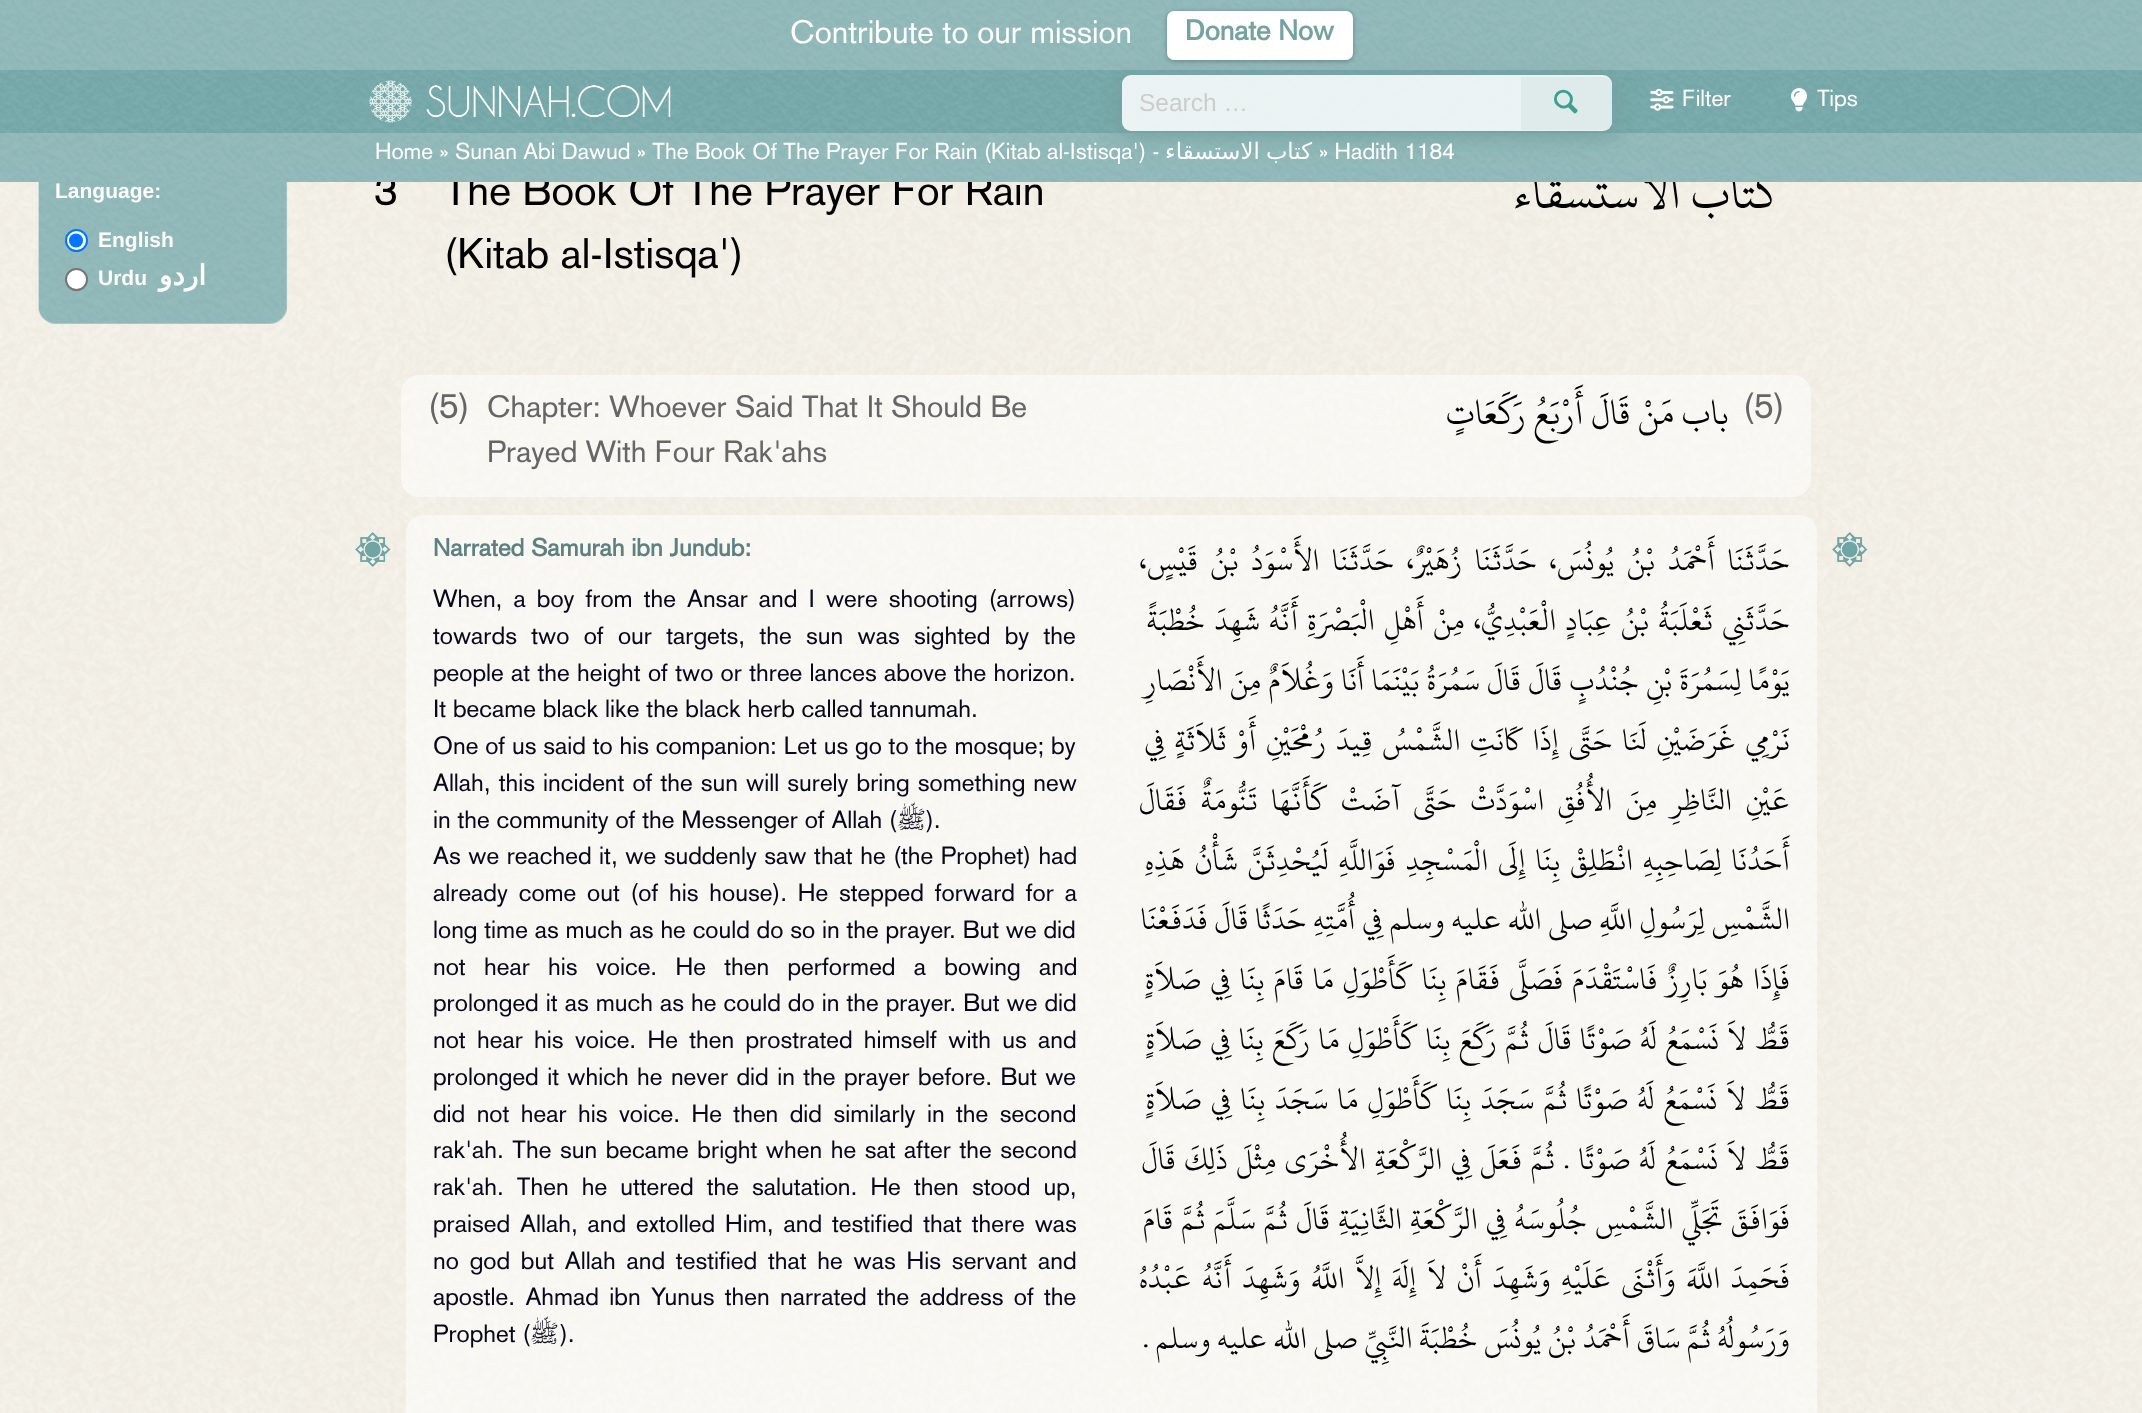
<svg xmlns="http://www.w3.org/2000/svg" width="2142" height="1413">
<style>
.a{font:bold 21px Liberation Sans;fill:#fff}
.b{font:bold 28px DejaVu Sans;direction:rtl;fill:#fff}
.c{font:42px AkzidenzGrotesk;fill:#000}
.d{font:52.5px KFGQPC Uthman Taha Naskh;direction:rtl;fill:#000}
.e{font:bold 28px AkzidenzGrotesk;fill:#75a1a1}
.f{font:31.8px AkzidenzGrotesk;fill:#fff}
.g{font:30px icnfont;fill:#3ba08f}
.h{font:24.5px Liberation Sans;fill:#ccc}
.i{font:23px AkzidenzGrotesk;fill:#fff}
.j{font:22.75px AkzidenzGrotesk;fill:#fff}
.k{font:22.75px DejaVu Sans;direction:rtl;fill:#fff}
.l{font:35px AkzidenzGrotesk;fill:#666}
.m{font:30.3px AkzidenzGrotesk;fill:#666}
.n{font:38.5px KFGQPC Uthman Taha Naskh;direction:rtl;fill:#000}
.o{font:bold 24.5px AkzidenzGrotesk;fill:#5d8080}
.p{font:24.5px AkzidenzGrotesk;fill:#08081a}
.q{font:24.5px Lateef;direction:rtl;fill:#08081a}
.r{font:33.25px KFGQPC Uthman Taha Naskh;direction:rtl;fill:#000}
</style>
<defs>
<clipPath id="clip1"><path d="M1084 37h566v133h-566zm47 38h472c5 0 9 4 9 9v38c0 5-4 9-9 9h-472c-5 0-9-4-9-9v-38c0-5 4-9 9-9z" clip-rule="evenodd"/></clipPath>
</defs>
<rect width="100%" height="100%" fill="#fff"/>
<image href="1.png" x="0" y="182" width="2142" height="1231"/>
<image href="6.png" x="38" y="182" width="250" height="142"/>
<rect fill="#fbfaf833" x="39" y="149" width="248" height="175" rx="18"/>
<circle fill="#fff" stroke="#0075ff" stroke-width="2" cx="76.5" cy="240.5" r="10.5"/>
<circle fill="#0075ff" cx="76" cy="240.5" r="7"/>
<circle fill="#fff" stroke="#767676" stroke-width="2" cx="76.5" cy="279.5" r="10.5"/>
<rect fill="#ffffff80" x="401" y="375" width="1410" height="122" rx="18"/>
<rect fill="#ffffff80" x="406" y="515" width="1411" height="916" rx="18"/>
<image href="7.png" x="355" y="532" width="36" height="35"/>
<image href="8.png" x="1832" y="532" width="36" height="35"/>
<text class="a" x="55" y="198">Language:</text>
<text class="a" x="98" y="247">English</text>
<text class="a" x="98" y="285">Urdu</text>
<text class="b" x="206" y="285">اردو</text>
<text class="c" x="374" y="205">3</text>
<text class="c" x="444" y="205">The Book Of The Prayer For Rain</text>
<text class="c" x="444" y="268">(Kitab al-Istisqa')</text>
<text class="d" x="1783" y="208">كتاب الاستسقاء</text>
<image href="2.png" x="0" y="0" width="2142" height="182"/>
<path fill="#fbfaf833" d="M0 133h2142v49H0z"/>
<g clip-path="url(#clip1)">
<rect fill="#75a1a1" filter="blur(10.5px)" x="1117" y="70" width="500" height="67" rx="14"/>
</g>
<path fill="#fbfaf833" d="M0 0h2142v70H0z"/>
<rect fill="#0000004d" filter="blur(2.5px)" x="1167" y="12" width="186" height="49" rx="7"/>
<rect fill="#fff" x="1167" y="11" width="186" height="49" rx="7"/>
<text class="e" x="1185" y="40">Donate Now</text>
<text class="f" x="790" y="43">Contribute to our mission</text>
<rect fill="#ffffffd9" x="1122" y="75" width="490" height="56" rx="9"/>
<path fill="#deebea" d="M1521 77h82c5 0 9 4 9 9v35c0 5-4 9-9 9h-82z"/>
<text class="g" x="1554" y="112">l</text>
<text class="h" x="1139" y="111">Search …</text>
<text class="i" x="1817" y="106">Tips</text>
<image href="5.png" x="1791" y="88" width="16" height="24"/>
<text class="i" x="1682" y="106">Filter</text>
<image href="4.png" x="1650" y="88" width="24" height="23"/>
<text class="j" x="1319" y="159">» Hadith 1184</text>
<text class="k" x="1312" y="159" word-spacing="-1">كتاب الاستسقاء</text>
<text class="j" x="375" y="159">Home » Sunan Abi Dawud » The Book Of The Prayer For Rain (Kitab al-Istisqa') -</text>
<image href="3.png" x="369" y="80" width="302" height="43"/>
<text class="l" x="428" y="418">(5)</text>
<text class="m" x="487" y="417">Chapter: Whoever Said That It Should Be</text>
<text class="m" x="487" y="462">Prayed With Four Rak'ahs</text>
<text class="n" x="1729" y="424">باب مَنْ قَالَ أَرْبَعُ رَكَعَاتٍ</text>
<text class="l" x="1743" y="418">(5)</text>
<text class="o" x="433" y="556">Narrated Samurah ibn Jundub:</text>
<text class="p" x="433" y="607" word-spacing="4.25">When, a boy from the Ansar and I were shooting (arrows)</text>
<text class="p" x="433" y="644" word-spacing="7.5">towards two of our targets, the sun was sighted by the</text>
<text class="p" x="433" y="681" word-spacing="0.5">people at the height of two or three lances above the horizon.</text>
<text class="p" x="433" y="717">It became black like the black herb called tannumah.</text>
<text class="p" x="433" y="754">One of us said to his companion: Let us go to the mosque; by</text>
<text class="p" x="433" y="791" word-spacing="1.25">Allah, this incident of the sun will surely bring something new</text>
<text class="p" x="433" y="828">in the community of the Messenger of Allah (</text>
<text class="q" x="926" y="828">ﷺ</text>
<text class="p" x="926" y="828">).</text>
<text class="p" x="433" y="864" word-spacing="0.75">As we reached it, we suddenly saw that he (the Prophet) had</text>
<text class="p" x="433" y="901" word-spacing="4">already come out (of his house). He stepped forward for a</text>
<text class="p" x="433" y="938">long time as much as he could do so in the prayer. But we did</text>
<text class="p" x="433" y="975" word-spacing="11.5">not hear his voice. He then performed a bowing and</text>
<text class="p" x="433" y="1011" word-spacing="0.25">prolonged it as much as he could do in the prayer. But we did</text>
<text class="p" x="433" y="1048" word-spacing="4.5">not hear his voice. He then prostrated himself with us and</text>
<text class="p" x="433" y="1085" word-spacing="1.6">prolonged it which he never did in the prayer before. But we</text>
<text class="p" x="433" y="1122" word-spacing="4.6">did not hear his voice. He then did similarly in the second</text>
<text class="p" x="433" y="1158" word-spacing="1.75">rak'ah. The sun became bright when he sat after the second</text>
<text class="p" x="433" y="1195" word-spacing="6.25">rak'ah. Then he uttered the salutation. He then stood up,</text>
<text class="p" x="433" y="1232" word-spacing="3.1">praised Allah, and extolled Him, and testified that there was</text>
<text class="p" x="433" y="1269" word-spacing="4">no god but Allah and testified that he was His servant and</text>
<text class="p" x="433" y="1305" word-spacing="3.5">apostle. Ahmad ibn Yunus then narrated the address of the</text>
<text class="p" x="433" y="1342">Prophet (</text>
<text class="q" x="559" y="1342">ﷺ</text>
<text class="p" x="560" y="1342">).</text>
<text class="r" x="1790" y="570" word-spacing="6">حَدَّثَنَا أَحْمَدُ بْنُ يُونُسَ، حَدَّثَنَا زُهَيْرٌ، حَدَّثَنَا الأَسْوَدُ بْنُ قَيْسٍ،</text>
<text class="r" x="1790" y="630" word-spacing="2.6">حَدَّثَنِي ثَعْلَبَةُ بْنُ عِبَادٍ الْعَبْدِيُّ، مِنْ أَهْلِ الْبَصْرَةِ أَنَّهُ شَهِدَ خُطْبَةً</text>
<text class="r" x="1790" y="690" word-spacing="0.75">يَوْمًا لِسَمُرَةَ بْنِ جُنْدُبٍ قَالَ قَالَ سَمُرَةُ بَيْنَمَا أَنَا وَغُلاَمٌ مِنَ الأَنْصَارِ</text>
<text class="r" x="1790" y="750" word-spacing="3.1">نَرْمِي غَرَضَيْنِ لَنَا حَتَّى إِذَا كَانَتِ الشَّمْسُ قِيدَ رُمْحَيْنِ أَوْ ثَلاَثَةٍ فِي</text>
<text class="r" x="1790" y="810" word-spacing="7">عَيْنِ النَّاظِرِ مِنَ الأُفُقِ اسْوَدَّتْ حَتَّى آضَتْ كَأَنَّهَا تَنُّومَةٌ فَقَالَ</text>
<text class="r" x="1790" y="870" word-spacing="3.25">أَحَدُنَا لِصَاحِبِهِ انْطَلِقْ بِنَا إِلَى الْمَسْجِدِ فَوَاللَّهِ لَيُحْدِثَنَّ شَأْنُ هَذِهِ</text>
<text class="r" x="1790" y="929" word-spacing="0.25">الشَّمْسِ لِرَسُولِ اللَّهِ صلى الله عليه وسلم فِي أُمَّتِهِ حَدَثًا قَالَ فَدَفَعْنَا</text>
<text class="r" x="1790" y="989" word-spacing="2.5">فَإِذَا هُوَ بَارِزٌ فَاسْتَقْدَمَ فَصَلَّى فَقَامَ بِنَا كَأَطْوَلِ مَا قَامَ بِنَا فِي صَلاَةٍ</text>
<text class="r" x="1790" y="1049" word-spacing="1.75">قَطُّ لاَ نَسْمَعُ لَهُ صَوْتًا قَالَ ثُمَّ رَكَعَ بِنَا كَأَطْوَلِ مَا رَكَعَ بِنَا فِي صَلاَةٍ</text>
<text class="r" x="1790" y="1109" word-spacing="2.6">قَطُّ لاَ نَسْمَعُ لَهُ صَوْتًا ثُمَّ سَجَدَ بِنَا كَأَطْوَلِ مَا سَجَدَ بِنَا فِي صَلاَةٍ</text>
<text class="r" x="1790" y="1169" word-spacing="2.1">قَطُّ لاَ نَسْمَعُ لَهُ صَوْتًا . ثُمَّ فَعَلَ فِي الرَّكْعَةِ الأُخْرَى مِثْلَ ذَلِكَ قَالَ</text>
<text class="r" x="1790" y="1229" word-spacing="1.6">فَوَافَقَ تَجَلِّي الشَّمْسِ جُلُوسَهُ فِي الرَّكْعَةِ الثَّانِيَةِ قَالَ ثُمَّ سَلَّمَ ثُمَّ قَامَ</text>
<text class="r" x="1790" y="1288" word-spacing="3.9">فَحَمِدَ اللَّهَ وَأَثْنَى عَلَيْهِ وَشَهِدَ أَنْ لاَ إِلَهَ إِلاَّ اللَّهُ وَشَهِدَ أَنَّهُ عَبْدُهُ</text>
<text class="r" x="1790" y="1348">وَرَسُولُهُ ثُمَّ سَاقَ أَحْمَدُ بْنُ يُونُسَ خُطْبَةَ النَّبِيِّ صلى الله عليه وسلم .</text>
</svg>
